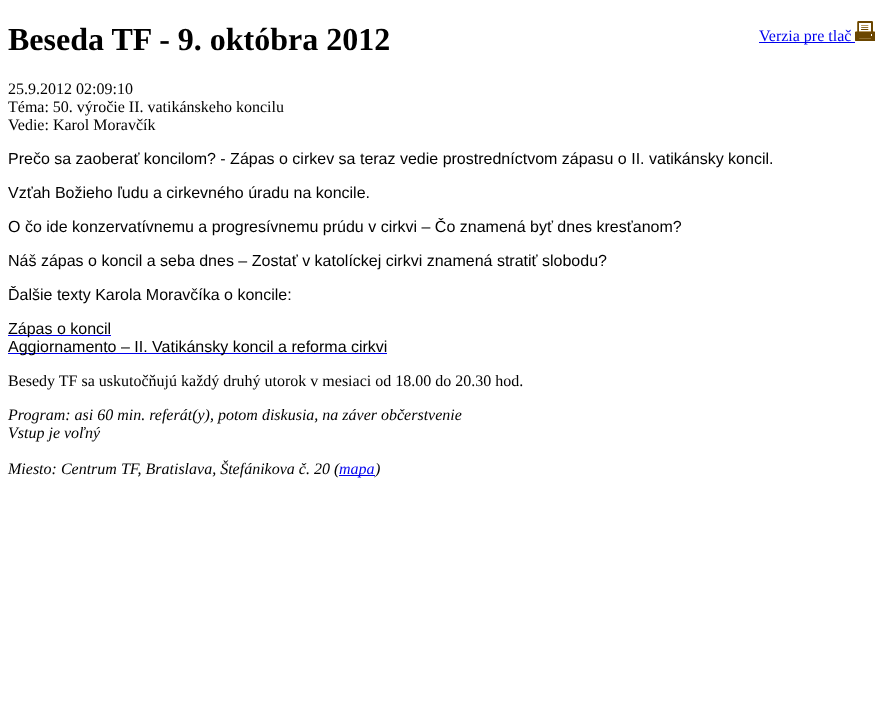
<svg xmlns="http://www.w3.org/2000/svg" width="883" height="712">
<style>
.a{font:bold 32px Liberation Serif;fill:#000}
.b{font:16px Liberation Serif;fill:#00e}
.c{font:16px Liberation Serif;fill:#000}
.d{font:16px Liberation Sans;fill:#000}
.e{font:italic 16px Liberation Serif;fill:#000}
.f{font:italic 16px Liberation Serif;fill:#00e}
</style>
<rect width="100%" height="100%" fill="#fff"/>
<path fill="#00e" d="M759 42h96v1H759z"/>
<image href="1.png" x="855" y="21" width="20" height="20"/>
<path fill="#00e" d="M8 335h103v1H8z"/>
<path fill="#00e" d="M8 353h379v1H8z"/>
<text class="a" x="8" y="50">Beseda TF - 9. októbra 2012</text>
<text class="b" x="759" y="41">Verzia pre tlač</text>
<text class="c" x="8" y="94">25.9.2012 02:09:10</text>
<text class="c" x="8" y="112">Téma: 50. výročie II. vatikánskeho koncilu</text>
<text class="c" x="8" y="130">Vedie: Karol Moravčík</text>
<text class="d" x="8" y="164">Prečo sa zaoberať koncilom? - Zápas o cirkev sa teraz vedie prostredníctvom zápasu o II. vatikánsky koncil.</text>
<text class="d" x="8" y="198">Vzťah Božieho ľudu a cirkevného úradu na koncile.</text>
<text class="d" x="8" y="232">O čo ide konzervatívnemu a progresívnemu prúdu v cirkvi – Čo znamená byť dnes kresťanom?</text>
<text class="d" x="8" y="266">Náš zápas o koncil a seba dnes – Zostať v katolíckej cirkvi znamená stratiť slobodu?</text>
<text class="d" x="8" y="300">Ďalšie texty Karola Moravčíka o koncile:</text>
<text class="d" x="8" y="334">Zápas o koncil</text>
<text class="d" x="8" y="352">Aggiornamento – II. Vatikánsky koncil a reforma cirkvi</text>
<text class="c" x="8" y="386">Besedy TF sa uskutočňujú každý druhý utorok v mesiaci od 18.00 do 20.30 hod.</text>
<text class="e" x="8" y="420">Program: asi 60 min. referát(y), potom diskusia, na záver občerstvenie</text>
<text class="e" x="8" y="438">Vstup je voľný</text>
<text class="e" x="8" y="474">Miesto: Centrum TF, Bratislava, Štefánikova č. 20 (</text>
<path fill="#00e" d="M339 475h36v1H339z"/>
<text class="f" x="339" y="474">mapa</text>
<text class="e" x="375" y="474">)</text>
</svg>
